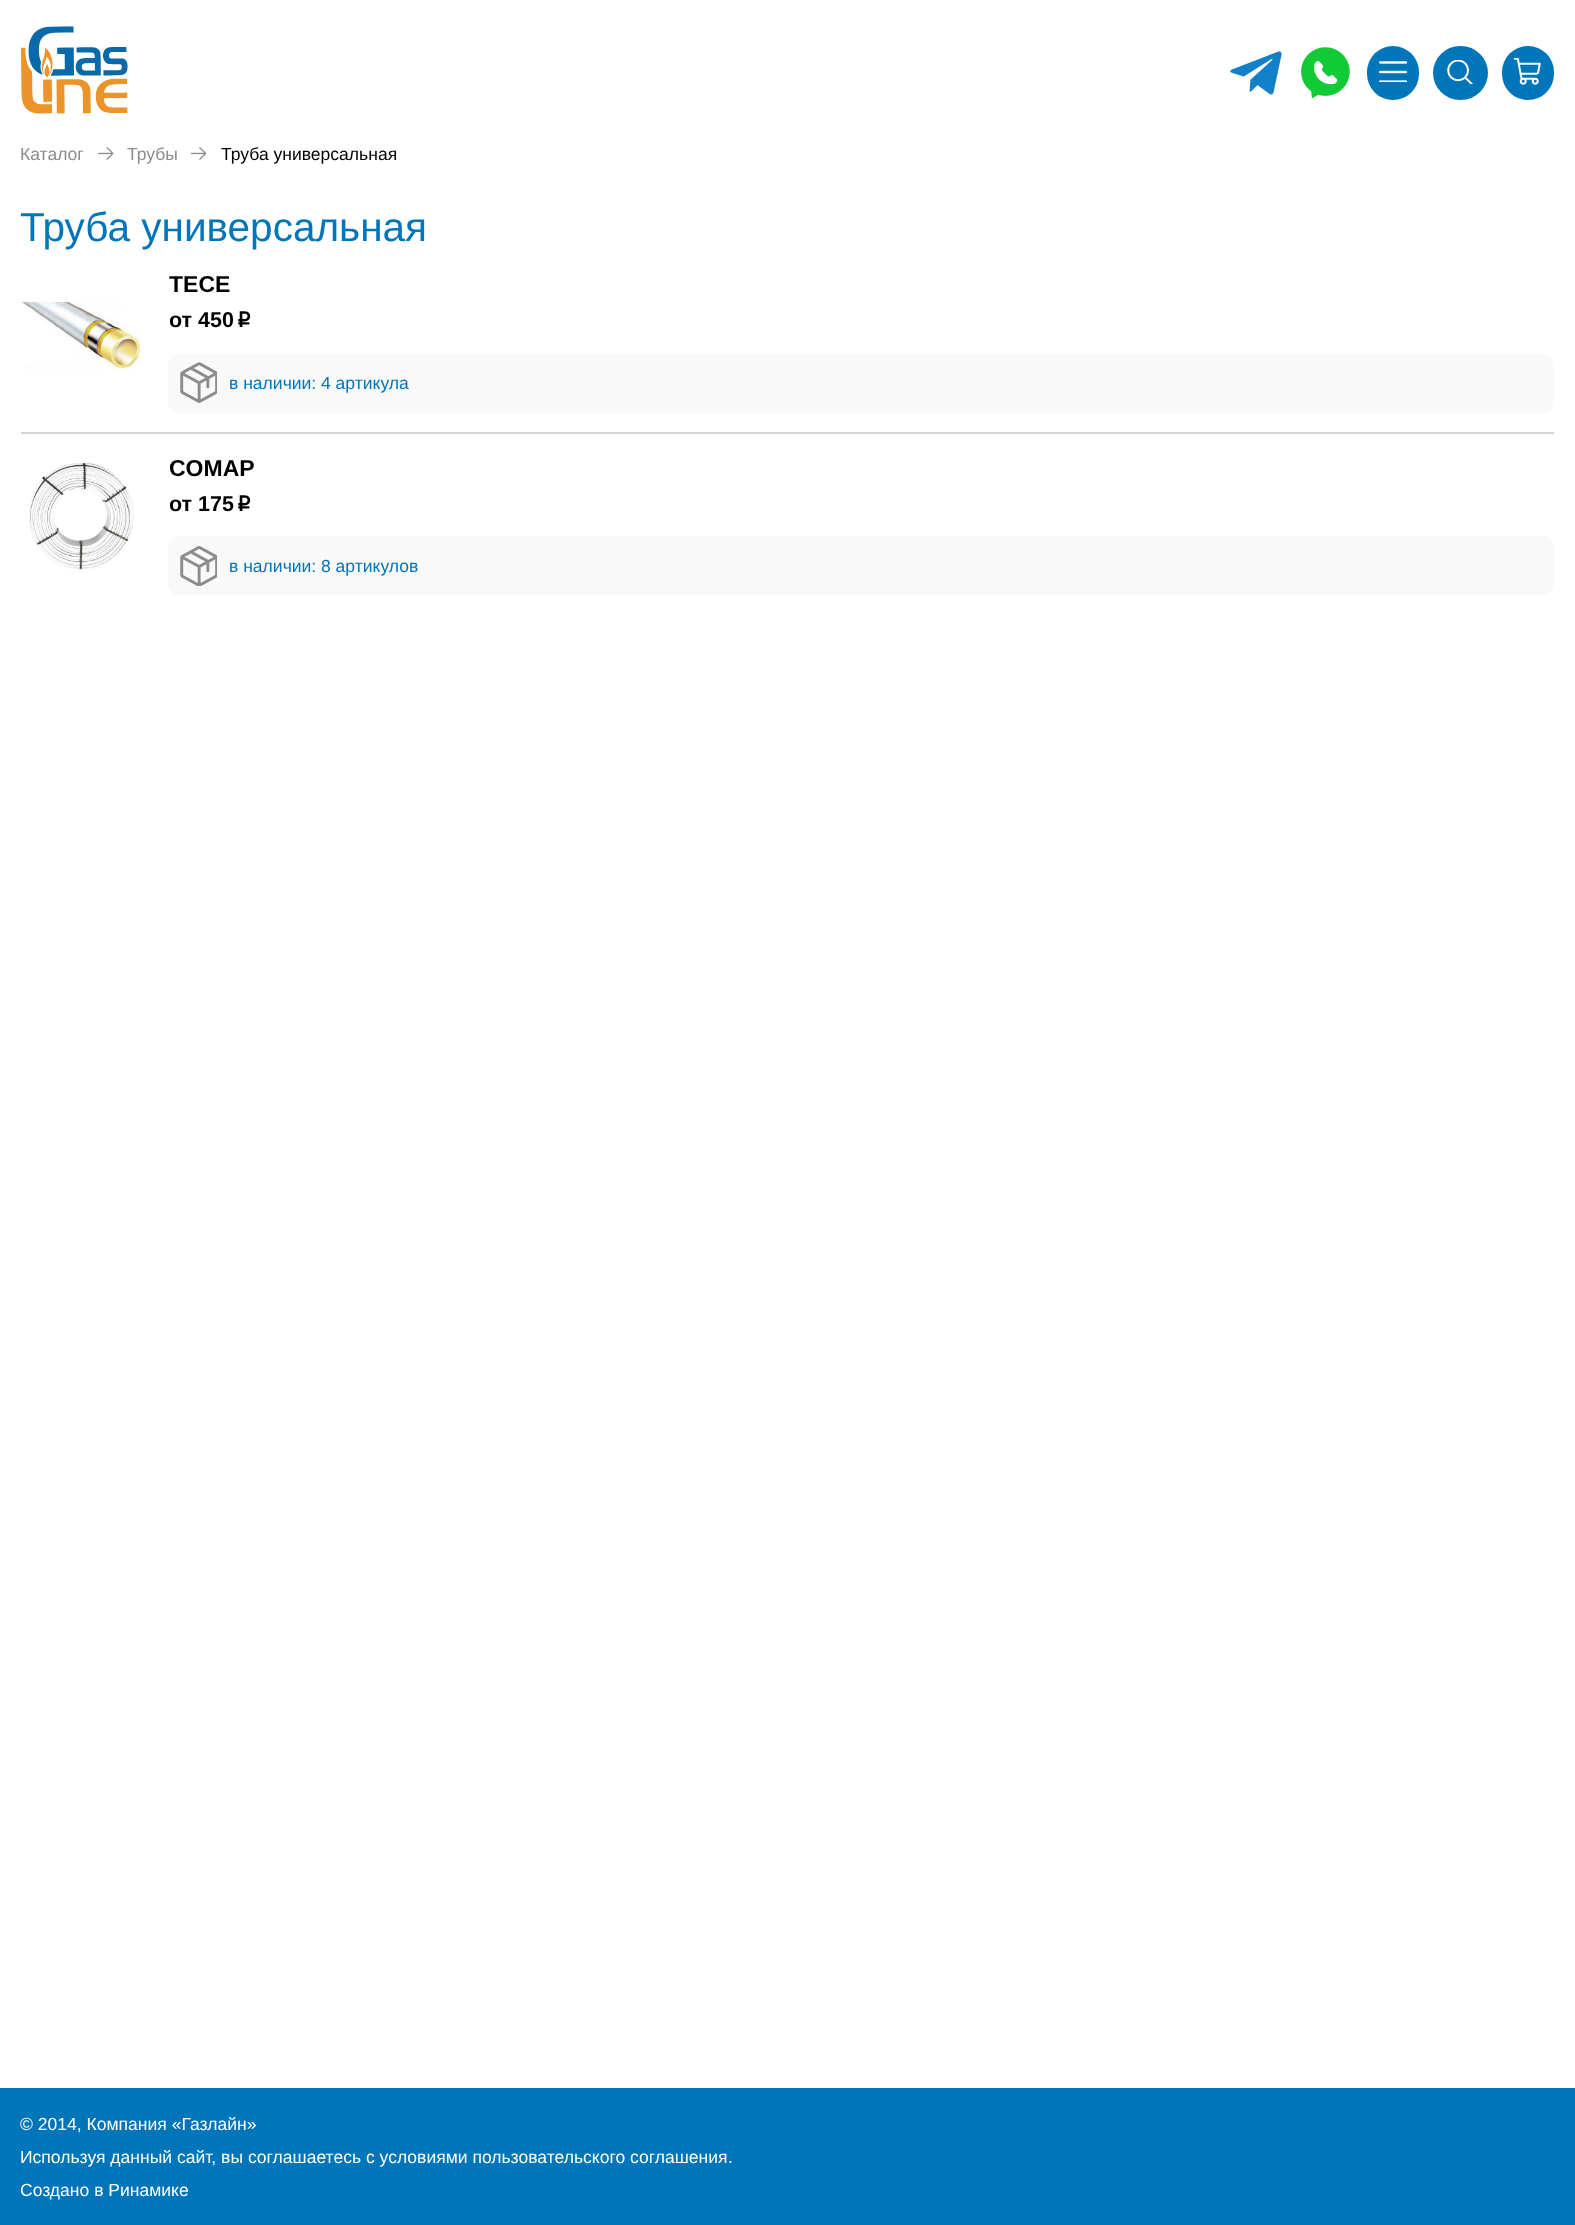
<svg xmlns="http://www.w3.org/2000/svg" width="1575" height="2225">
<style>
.a{font:17.55px Liberation Sans;fill:#8c8c8c}
.b{font:17.55px Liberation Sans;fill:#000}
.c{font:40.5px Liberation Sans;fill:#0175b9}
.d{font:bold 23px Liberation Sans;fill:#000}
.e{font:bold 21.5px Liberation Sans;fill:#000}
.f{font:bold 21.5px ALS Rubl;fill:#000}
.g{font:17.55px Liberation Sans;fill:#0175b9}
.h{font:17.55px Liberation Sans;fill:#fff}
</style>
<rect width="100%" height="100%" fill="#fff"/>
<image href="1.png" x="21" y="26" width="107" height="88"/>
<image href="2.png" x="1230" y="51" width="52" height="44"/>
<image href="3.png" x="1301" y="47" width="49" height="51"/>
<rect fill="#0175b9" x="1367" y="46" width="52" height="54" rx="26"/>
<image href="4.png" x="1379" y="61" width="28" height="21"/>
<rect fill="#0175b9" x="1433" y="46" width="55" height="54" rx="27"/>
<image href="5.png" x="1447" y="60" width="26" height="24"/>
<rect fill="#0175b9" x="1502" y="46" width="52" height="54" rx="26"/>
<image href="6.png" x="1514" y="58" width="27" height="27"/>
<image href="7.png" x="98" y="147" width="16" height="13"/>
<image href="8.png" x="191" y="147" width="16" height="13"/>
<path fill="#d4d4d4" d="M21 432h1533v2H21z"/>
<image href="9.png" x="21" y="300" width="121" height="71"/>
<rect fill="#f9f9f9" x="168" y="354" width="1386" height="59" rx="11"/>
<image href="10.png" x="180" y="362" width="37" height="41"/>
<image href="11.png" x="29" y="463" width="105" height="107"/>
<rect fill="#f9f9f9" x="168" y="536" width="1386" height="59" rx="11"/>
<image href="12.png" x="180" y="546" width="37" height="40"/>
<path fill="#0175b9" d="M0 2088h1575v137H0z"/>
<text class="a" x="20" y="160">Каталог</text>
<text class="a" x="127" y="160">Трубы</text>
<text class="b" x="221" y="160">Труба универсальная</text>
<text class="c" x="20" y="241">Труба универсальная</text>
<text class="d" x="169" y="292">TECE</text>
<text class="e" x="169" y="327">от 450</text>
<text class="f" x="234" y="327">p</text>
<text class="g" x="229" y="389">в наличии:</text>
<text class="g" x="321" y="389">4 артикула</text>
<text class="d" x="169" y="476">COMAP</text>
<text class="e" x="169" y="511">от 175</text>
<text class="f" x="234" y="511">p</text>
<text class="g" x="229" y="572">в наличии:</text>
<text class="g" x="321" y="572">8 артикулов</text>
<text class="h" x="20" y="2130">© 2014, Компания «Газлайн»</text>
<text class="h" x="20" y="2163">Используя данный сайт, вы соглашаетесь с условиями пользовательского соглашения</text>
<text class="h" x="728" y="2163">.</text>
<text class="h" x="20" y="2196">Создано в Ринамике</text>
</svg>
